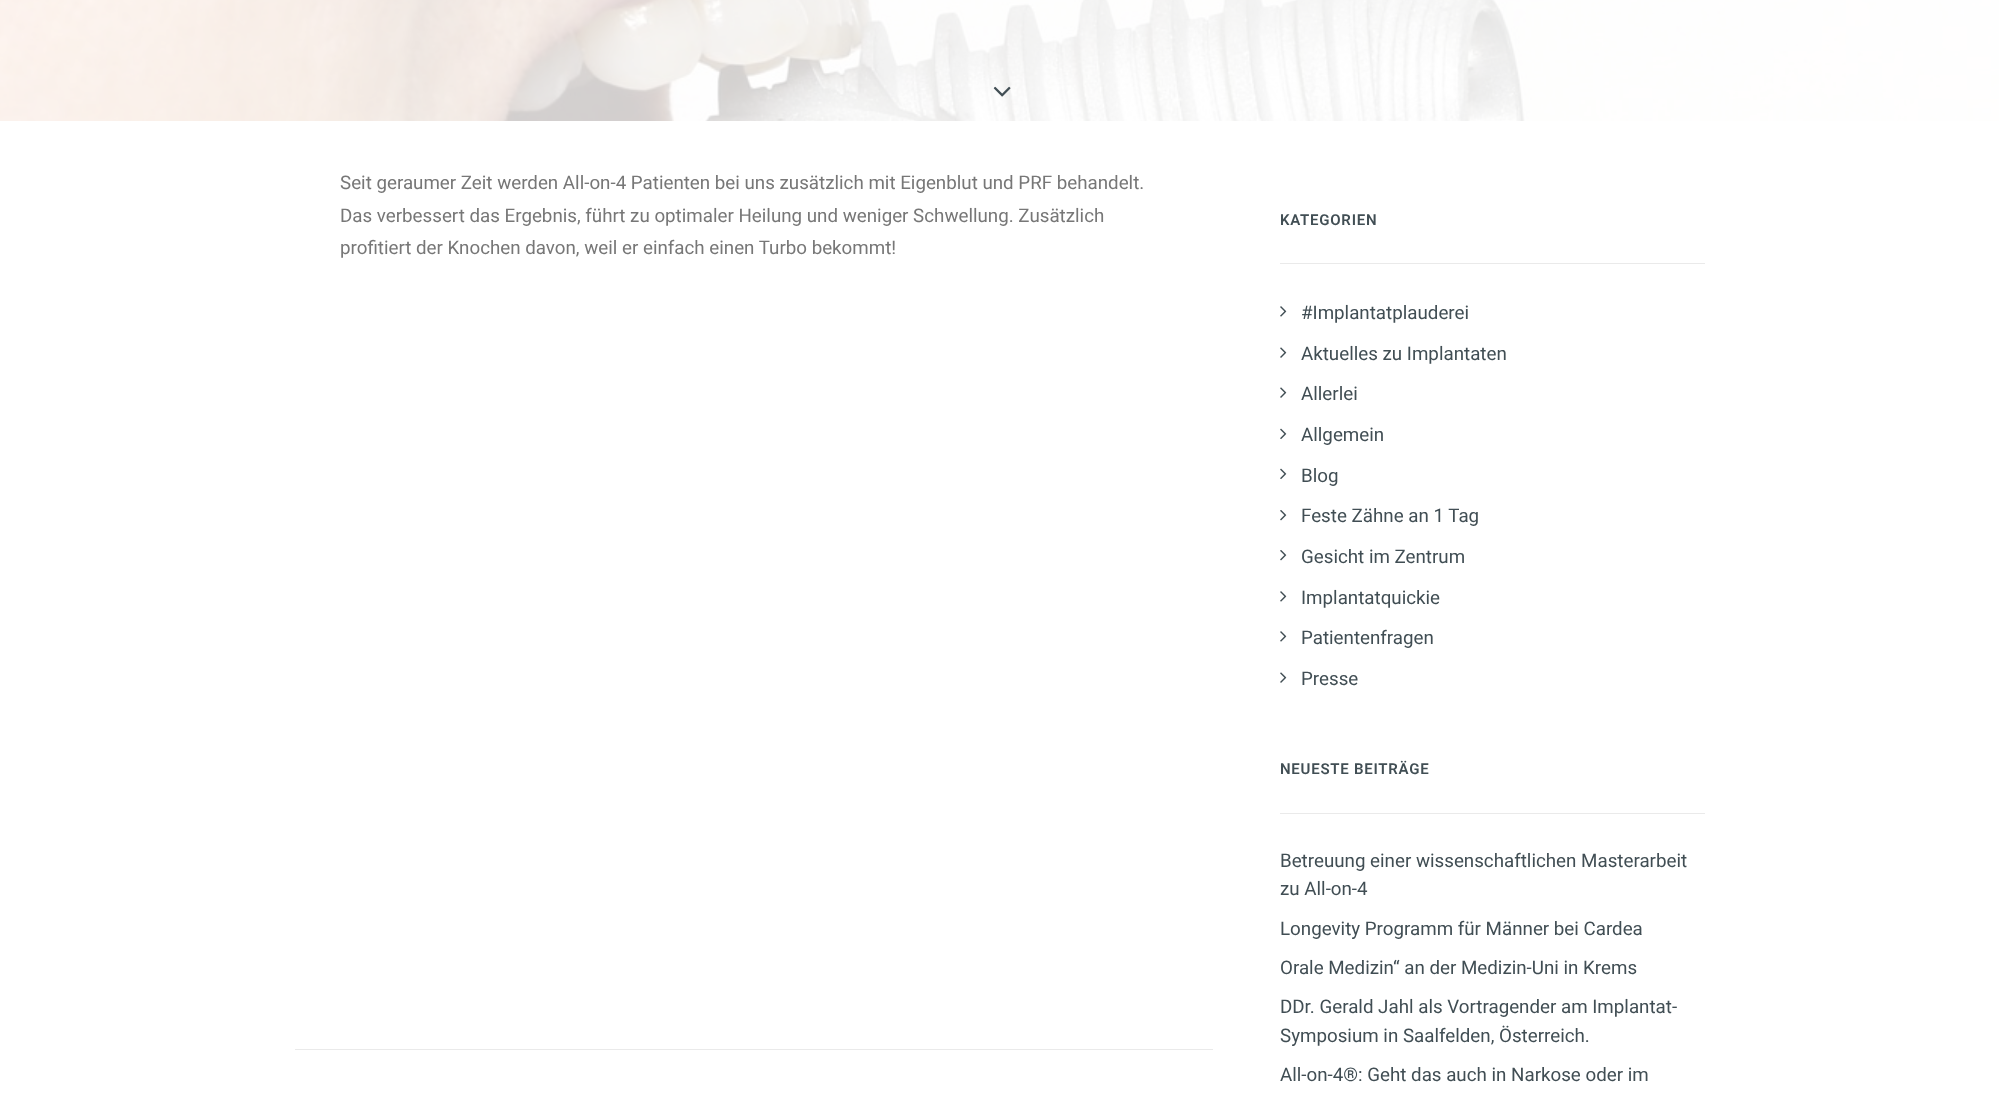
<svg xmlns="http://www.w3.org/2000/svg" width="1999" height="1093">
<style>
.a{font:18.75px Roboto;fill:#777}
.b{font:600 15px Roboto;letter-spacing:0.75px;fill:#414e54}
.c{font:18.75px Roboto;fill:#414e54}
</style>
<rect width="100%" height="100%" fill="#fff"/>
<image href="1.png" x="0" y="0" width="1999" height="121"/>
<image href="2.png" x="993" y="86" width="18" height="11"/>
<path fill="#eaeaea" d="M295 1049h918v1H295z"/>
<path fill="#eaeaea" d="M1280 263h425v1H1280z"/>
<image href="3.png" x="1280" y="306" width="7" height="11"/>
<image href="4.png" x="1280" y="347" width="7" height="11"/>
<image href="4.png" x="1280" y="387" width="7" height="11"/>
<image href="5.png" x="1280" y="428" width="7" height="11"/>
<image href="5.png" x="1280" y="468" width="7" height="11"/>
<image href="6.png" x="1280" y="510" width="7" height="11"/>
<image href="6.png" x="1280" y="550" width="7" height="11"/>
<image href="3.png" x="1280" y="591" width="7" height="11"/>
<image href="3.png" x="1280" y="631" width="7" height="11"/>
<image href="4.png" x="1280" y="672" width="7" height="11"/>
<path fill="#eaeaea" d="M1280 813h425v1H1280z"/>
<text class="a" x="340" y="189">Seit geraumer Zeit werden All-on-4 Patienten bei uns zusätzlich mit Eigenblut und PRF behandelt.</text>
<text class="a" x="340" y="222">Das verbessert das Ergebnis, führt zu optimaler Heilung und weniger Schwellung. Zusätzlich</text>
<text class="a" x="340" y="254">profitiert der Knochen davon, weil er einfach einen Turbo bekommt!</text>
<text class="b" x="1280" y="225">KATEGORIEN</text>
<text class="c" x="1301" y="319">#Implantatplauderei</text>
<text class="c" x="1301" y="360">Aktuelles zu Implantaten</text>
<text class="c" x="1301" y="400">Allerlei</text>
<text class="c" x="1301" y="441">Allgemein</text>
<text class="c" x="1301" y="482">Blog</text>
<text class="c" x="1301" y="522">Feste Zähne an 1 Tag</text>
<text class="c" x="1301" y="563">Gesicht im Zentrum</text>
<text class="c" x="1301" y="604">Implantatquickie</text>
<text class="c" x="1301" y="644">Patientenfragen</text>
<text class="c" x="1301" y="685">Presse</text>
<text class="b" x="1280" y="774">NEUESTE BEITRÄGE</text>
<text class="c" x="1280" y="867">Betreuung einer wissenschaftlichen Masterarbeit</text>
<text class="c" x="1280" y="895">zu All-on-4</text>
<text class="c" x="1280" y="935">Longevity Programm für Männer bei Cardea</text>
<text class="c" x="1280" y="974">Orale Medizin“ an der Medizin-Uni in Krems</text>
<text class="c" x="1280" y="1013">DDr. Gerald Jahl als Vortragender am Implantat-</text>
<text class="c" x="1280" y="1042">Symposium in Saalfelden, Österreich.</text>
<text class="c" x="1280" y="1081">All-on-4®: Geht das auch in Narkose oder im</text>
</svg>
